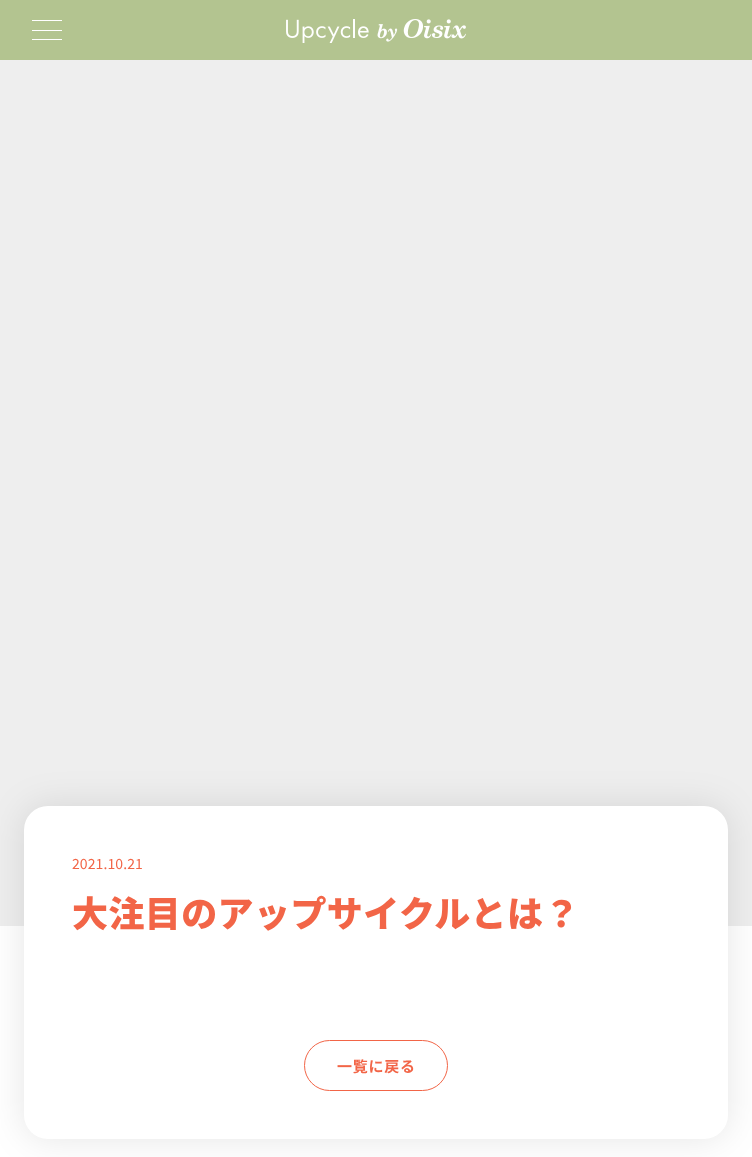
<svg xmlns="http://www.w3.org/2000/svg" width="752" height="1157">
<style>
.a{font:14px Noto Sans JP;letter-spacing:0.1px;fill:#f26547}
.b{font:900 36px Noto Sans JP;letter-spacing:0.4px;fill:#f26547}
.c{font:bold 15px Noto Sans JP;letter-spacing:0.75px;fill:#f26547}
</style>
<rect width="100%" height="100%" fill="#fff"/>
<path fill="#b3c490" d="M0 0h752v60H0z"/>
<path fill="#fff" d="M32 20h30v1H32z"/>
<path fill="#fff" d="M32 30h30v1H32z"/>
<path fill="#fff" d="M32 39h30v1H32z"/>
<image href="1.png" x="286" y="19" width="180" height="24"/>
<path fill="#eee" d="M0 60h752v866H0z"/>
<rect fill="#0000001a" filter="blur(18px)" x="24" y="806" width="704" height="333" rx="24"/>
<rect fill="#fff" x="24" y="806" width="704" height="333" rx="24"/>
<rect fill="none" stroke="#f26547" x="304.5" y="1040.5" width="143" height="50" rx="25"/>
<text class="a" x="72" y="869">2021.10.21</text>
<text class="b" x="72" y="927">大注目のアップサイクルとは？</text>
<text class="c" x="337" y="1072">一覧に戻る</text>
</svg>
